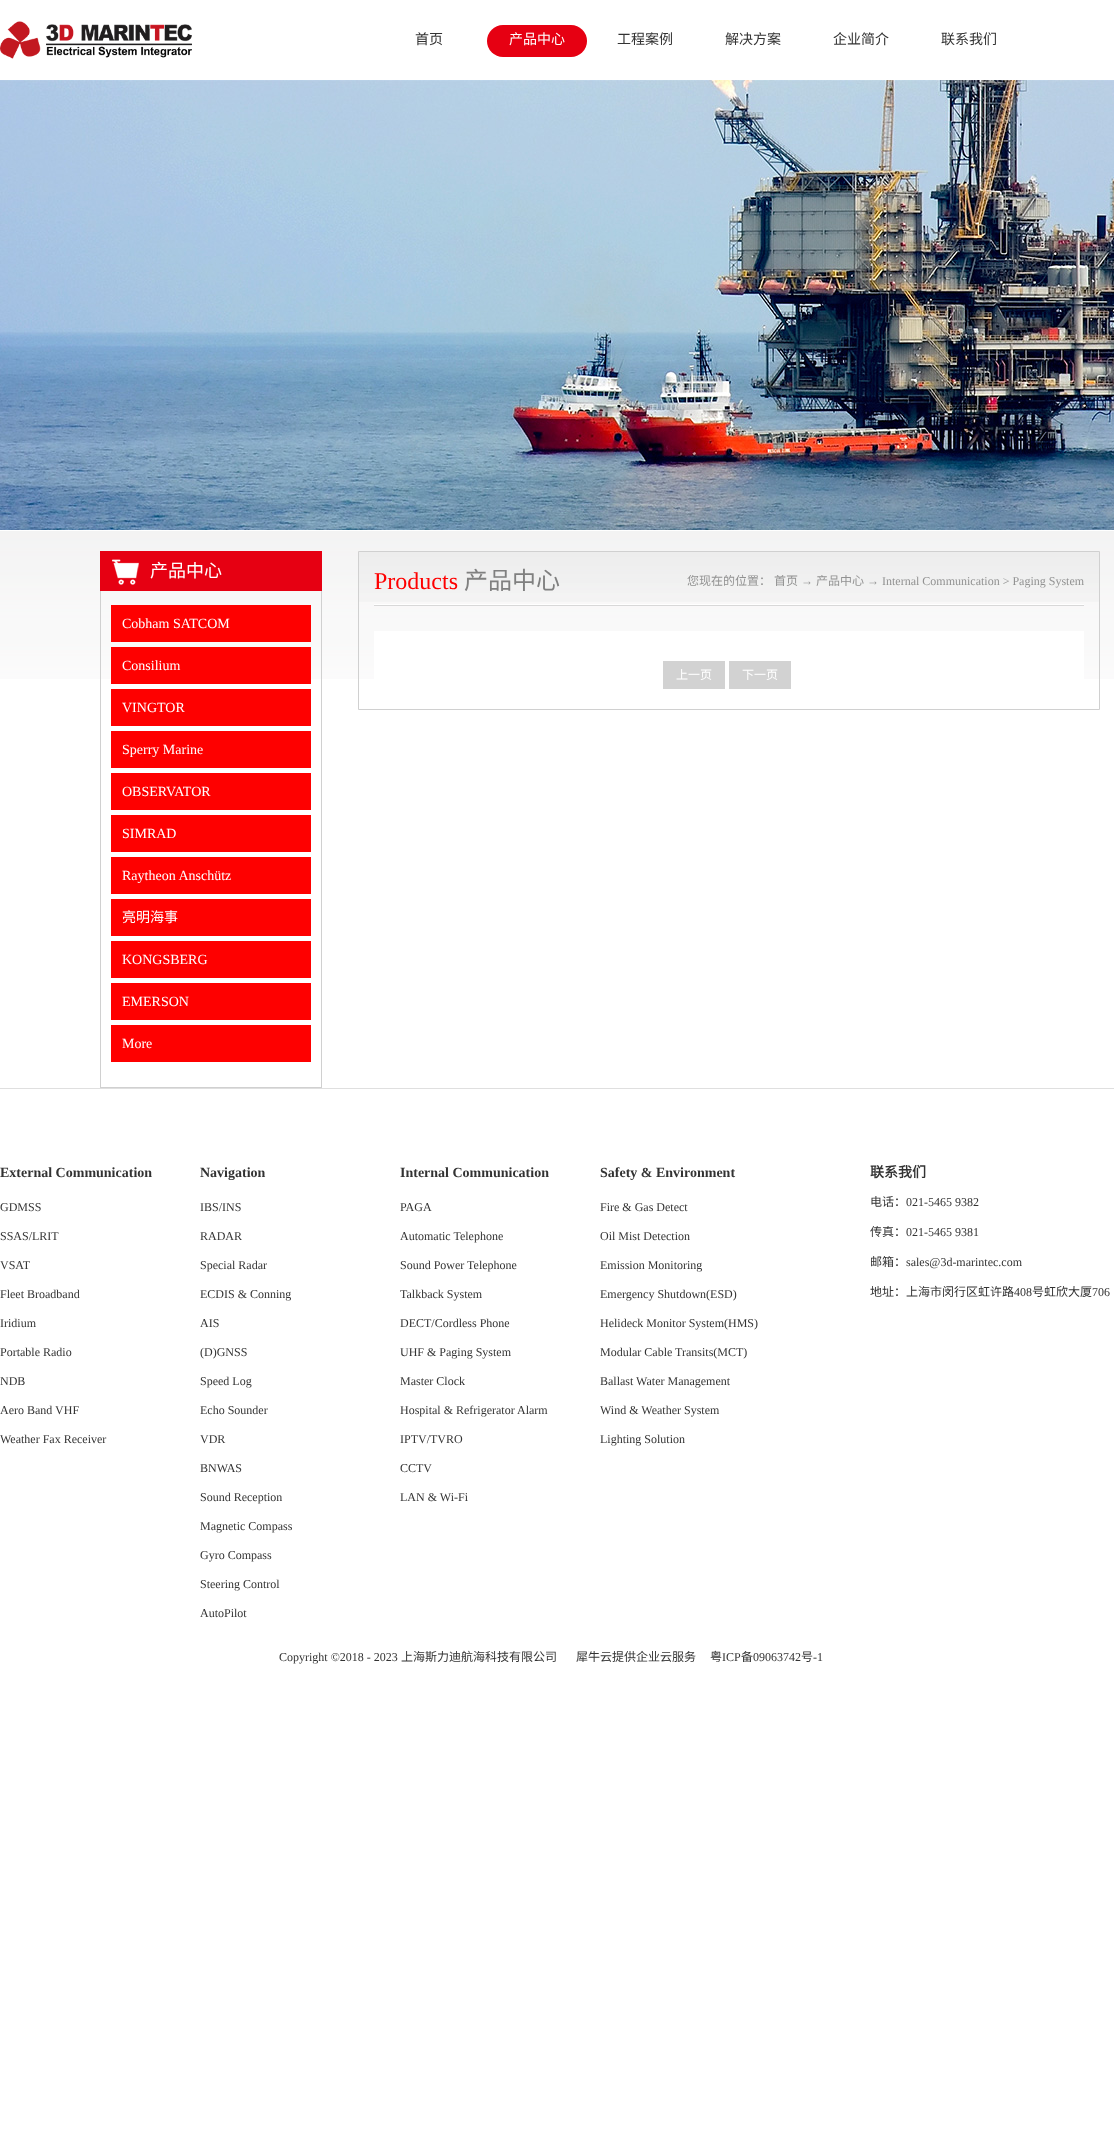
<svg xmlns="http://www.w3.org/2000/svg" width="1114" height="2144">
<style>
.a{font:14px Noto Sans CJK SC;fill:#333}
.b{font:14px Noto Sans CJK SC;fill:#fff}
.c{font:18px Noto Sans CJK SC;fill:#fff}
.d{font:14px Liberation Serif;fill:#fff}
.e{font:24px Liberation Serif;fill:#fe0000}
.f{font:24px Noto Sans CJK SC;fill:#808080}
.g{font:12px Noto Sans CJK SC;fill:#929292}
.h{font:12px Liberation Serif;fill:#929292}
.i{font:12px Noto Sans CJK SC;fill:#fff}
.j{font:bold 14px Liberation Serif;fill:#333}
.k{font:12px Liberation Serif;fill:#333}
.l{font:bold 14px Noto Sans CJK SC;fill:#333}
.m{font:12px Noto Sans CJK SC;fill:#333}
</style>
<rect width="100%" height="100%" fill="#fff"/>
<image href="1.png" x="0" y="21" width="192" height="38"/>
<image href="2.png" x="487" y="25" width="100" height="32"/>
<image href="3.png" x="0" y="80" width="1114" height="450"/>
<image href="4.png" x="0" y="531" width="1114" height="148"/>
<path fill="#e60012" d="M100 551h222v40H100z"/>
<image href="5.png" x="112" y="559" width="27" height="26"/>
<path fill="#d0d0d0" d="M321 591h1v497H321z"/>
<path fill="#d0d0d0" d="M100 1087h222v1H100z"/>
<path fill="#d0d0d0" d="M100 591h1v497H100z"/>
<path fill="#fe0000" d="M111 605h200v37H111z"/>
<path fill="#fe0000" d="M111 647h200v37H111z"/>
<path fill="#fe0000" d="M111 689h200v37H111z"/>
<path fill="#fe0000" d="M111 731h200v37H111z"/>
<path fill="#fe0000" d="M111 773h200v37H111z"/>
<path fill="#fe0000" d="M111 815h200v37H111z"/>
<path fill="#fe0000" d="M111 857h200v37H111z"/>
<path fill="#fe0000" d="M111 899h200v37H111z"/>
<path fill="#fe0000" d="M111 941h200v37H111z"/>
<path fill="#fe0000" d="M111 983h200v37H111z"/>
<path fill="#fe0000" d="M111 1025h200v37H111z"/>
<image href="6.png" x="359" y="552" width="740" height="50"/>
<path fill="none" stroke="#d0d0d0" d="M358.5 551.5h741v158H358.5z"/>
<path fill="#fff" d="M374 604h710v1H374z"/>
<path fill="#d8d8d8" d="M374 605h710v1H374z"/>
<path fill="#fff" d="M374 631h710v48H374z"/>
<path fill="#d2d2d2" d="M663 661h62v28H663z"/>
<path fill="#d2d2d2" d="M729 661h62v28H729z"/>
<path fill="#dfdfdf" d="M0 1088h1114v1H0z"/>
<text class="a" x="415" y="44">首页</text>
<text class="b" x="509" y="44">产品中心</text>
<text class="a" x="617" y="44">工程案例</text>
<text class="a" x="725" y="44">解决方案</text>
<text class="a" x="833" y="44">企业简介</text>
<text class="a" x="941" y="44">联系我们</text>
<text class="c" x="150" y="577">产品中心</text>
<text class="d" x="122" y="628">Cobham SATCOM</text>
<text class="d" x="122" y="670">Consilium</text>
<text class="d" x="122" y="712">VINGTOR</text>
<text class="d" x="122" y="754">Sperry Marine</text>
<text class="d" x="122" y="796">OBSERVATOR</text>
<text class="d" x="122" y="838">SIMRAD</text>
<text class="d" x="122" y="880">Raytheon Anschütz</text>
<text class="b" x="122" y="922">亮明海事</text>
<text class="d" x="122" y="964">KONGSBERG</text>
<text class="d" x="122" y="1006">EMERSON</text>
<text class="d" x="122" y="1048">More</text>
<text class="e" x="374" y="589">Products</text>
<text class="f" x="464" y="589">产品中心</text>
<text class="g" x="687" y="585">您现在的位置：</text>
<text class="g" x="774" y="585">首页</text>
<text class="h" x="801" y="585">→</text>
<text class="g" x="816" y="585">产品中心</text>
<text class="h" x="867" y="585">→ Internal Communication &gt; Paging System</text>
<text class="i" x="676" y="679">上一页</text>
<text class="i" x="742" y="679">下一页</text>
<text class="j" x="0" y="1177">External Communication</text>
<text class="k" x="0" y="1211">GDMSS</text>
<text class="k" x="0" y="1240">SSAS/LRIT</text>
<text class="k" x="0" y="1269">VSAT</text>
<text class="k" x="0" y="1298">Fleet Broadband</text>
<text class="k" x="0" y="1327">Iridium</text>
<text class="k" x="0" y="1356">Portable Radio</text>
<text class="k" x="0" y="1385">NDB</text>
<text class="k" x="0" y="1414">Aero Band VHF</text>
<text class="k" x="0" y="1443">Weather Fax Receiver</text>
<text class="j" x="200" y="1177">Navigation</text>
<text class="k" x="200" y="1211">IBS/INS</text>
<text class="k" x="200" y="1240">RADAR</text>
<text class="k" x="200" y="1269">Special Radar</text>
<text class="k" x="200" y="1298">ECDIS &amp; Conning</text>
<text class="k" x="200" y="1327">AIS</text>
<text class="k" x="200" y="1356">(D)GNSS</text>
<text class="k" x="200" y="1385">Speed Log</text>
<text class="k" x="200" y="1414">Echo Sounder</text>
<text class="k" x="200" y="1443">VDR</text>
<text class="k" x="200" y="1472">BNWAS</text>
<text class="k" x="200" y="1501">Sound Reception</text>
<text class="k" x="200" y="1530">Magnetic Compass</text>
<text class="k" x="200" y="1559">Gyro Compass</text>
<text class="k" x="200" y="1588">Steering Control</text>
<text class="k" x="200" y="1617">AutoPilot</text>
<text class="j" x="400" y="1177">Internal Communication</text>
<text class="k" x="400" y="1211">PAGA</text>
<text class="k" x="400" y="1240">Automatic Telephone</text>
<text class="k" x="400" y="1269">Sound Power Telephone</text>
<text class="k" x="400" y="1298">Talkback System</text>
<text class="k" x="400" y="1327">DECT/Cordless Phone</text>
<text class="k" x="400" y="1356">UHF &amp; Paging System</text>
<text class="k" x="400" y="1385">Master Clock</text>
<text class="k" x="400" y="1414">Hospital &amp; Refrigerator Alarm</text>
<text class="k" x="400" y="1443">IPTV/TVRO</text>
<text class="k" x="400" y="1472">CCTV</text>
<text class="k" x="400" y="1501">LAN &amp; Wi-Fi</text>
<text class="j" x="600" y="1177">Safety &amp; Environment</text>
<text class="k" x="600" y="1211">Fire &amp; Gas Detect</text>
<text class="k" x="600" y="1240">Oil Mist Detection</text>
<text class="k" x="600" y="1269">Emission Monitoring</text>
<text class="k" x="600" y="1298">Emergency Shutdown(ESD)</text>
<text class="k" x="600" y="1327">Helideck Monitor System(HMS)</text>
<text class="k" x="600" y="1356">Modular Cable Transits(MCT)</text>
<text class="k" x="600" y="1385">Ballast Water Management</text>
<text class="k" x="600" y="1414">Wind &amp; Weather System</text>
<text class="k" x="600" y="1443">Lighting Solution</text>
<text class="l" x="870" y="1177">联系我们</text>
<text class="m" x="870" y="1206">电话：</text>
<text class="k" x="906" y="1206">021-5465 9382</text>
<text class="m" x="870" y="1236">传真：</text>
<text class="k" x="906" y="1236">021-5465 9381</text>
<text class="m" x="870" y="1266">邮箱：</text>
<text class="k" x="906" y="1266">sales@3d-marintec.com</text>
<text class="m" x="870" y="1296">地址：上海市闵行区虹许路</text>
<text class="k" x="1014" y="1296">408</text>
<text class="m" x="1032" y="1296">号虹欣大厦</text>
<text class="k" x="1092" y="1296">706</text>
<text class="k" x="279" y="1661">Copyright ©2018 - 2023</text>
<text class="m" x="401" y="1661">上海斯力迪航海科技有限公司</text>
<text class="m" x="576" y="1661">犀牛云提供企业云服务</text>
<text class="m" x="710" y="1661">粤</text>
<text class="k" x="722" y="1661">ICP</text>
<text class="m" x="741" y="1661">备</text>
<text class="k" x="753" y="1661">09063742</text>
<text class="m" x="801" y="1661">号</text>
<text class="k" x="813" y="1661">-1</text>
</svg>
